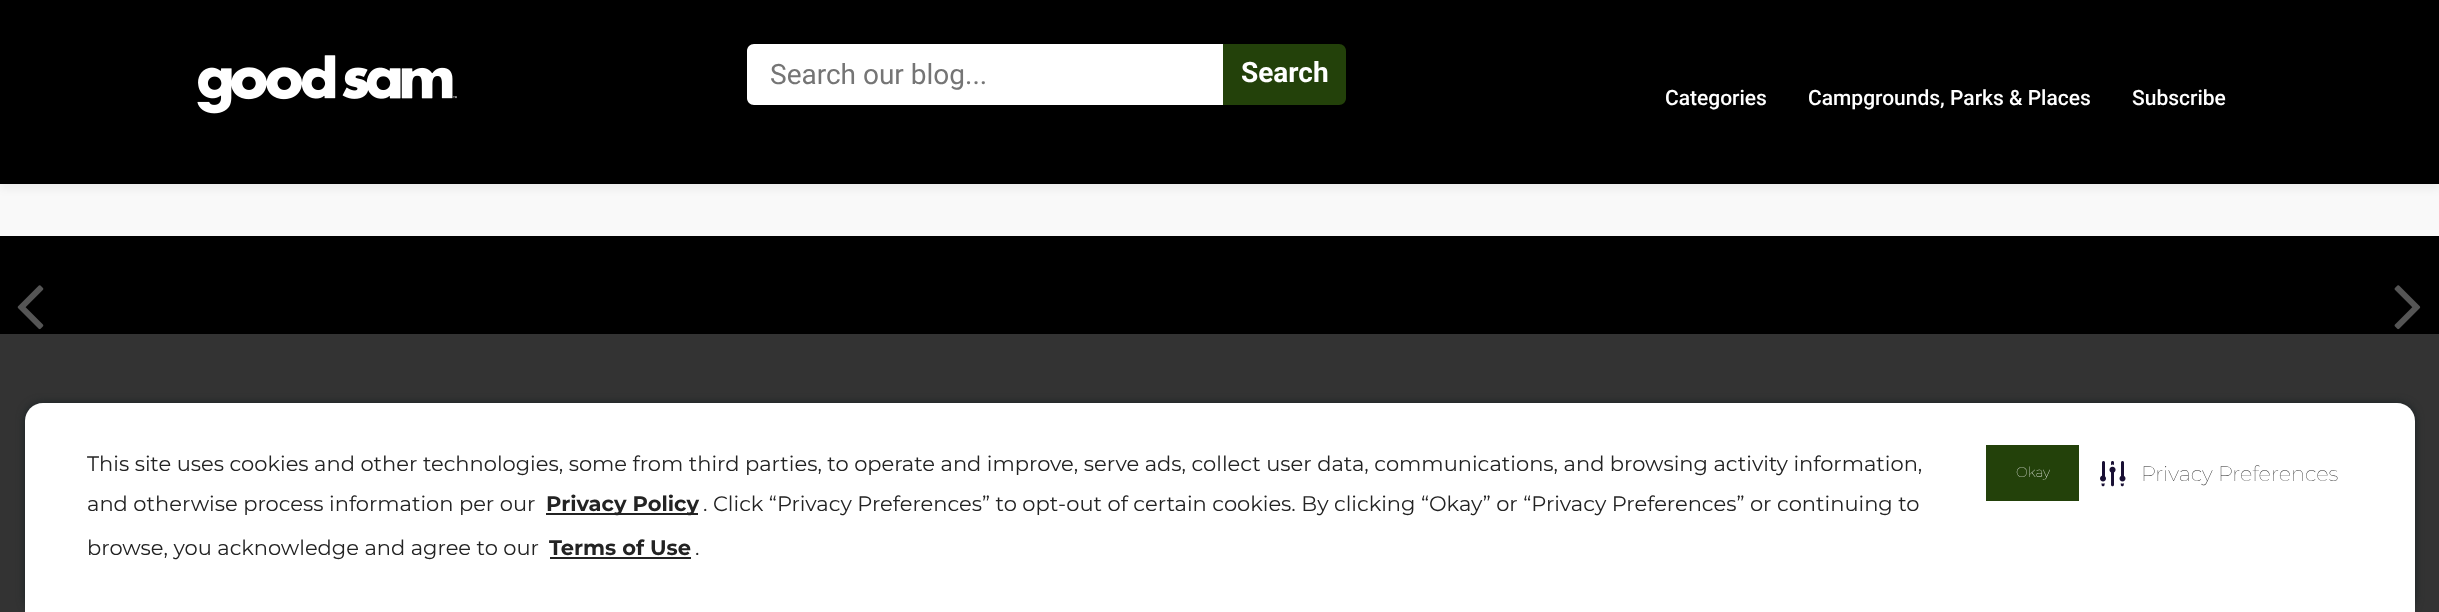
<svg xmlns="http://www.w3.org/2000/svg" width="2439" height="612">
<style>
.a{font:28px Roboto;fill:#757575}
.b{font:bold 28px Roboto;fill:#fff}
.c{font:500 21px Roboto;fill:#fff}
.d{font:21px Montserrat;fill:#232323}
.e{font:bold 21px Montserrat;fill:#232323}
.f{font:100 14px Montserrat;fill:#fff}
.g{font:100 21px Montserrat;fill:#232323}
</style>
<rect width="100%" height="100%" fill="#f9f9f9"/>
<path fill="#0000000d" filter="blur(4.5px)" d="M0 5h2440v184H0z"/>
<path fill="#000" d="M0 0h2439v184H0z"/>
<image href="1.png" x="197" y="55" width="260" height="59"/>
<path fill="#fff" d="M754 44h534v61h-534c-4 0-7-3-7-7v-47c0-4 3-7 7-7z"/>
<path fill="#23410a" d="M1223 44h116c4 0 7 3 7 7v47c0 4-3 7-7 7h-116z"/>
<path fill="#000" d="M0 236h2439v98H0z"/>
<image href="2.png" x="17" y="285" width="27" height="45"/>
<image href="3.png" x="2394" y="285" width="27" height="45"/>
<path fill="#333" d="M0 334h2439v278H0z"/>
<rect fill="#192224" filter="blur(4.5px)" x="25" y="403" width="2390" height="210" rx="18"/>
<path fill="#fff" d="M43 403h2354c10 0 18 8 18 18v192h-2390v-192c0-10 8-18 18-18z"/>
<path fill="#232323" d="M546 513h152v2H546z"/>
<path fill="#232323" d="M550 557h141v2H550z"/>
<path fill="#23410a" d="M1986 445h93v56H1986z"/>
<image href="4.png" x="2100" y="461" width="26" height="26"/>
<text class="a" x="770" y="84">Search our blog...</text>
<text class="b" x="1241" y="82">Search</text>
<text class="c" x="1665" y="105">Categories</text>
<text class="c" x="1808" y="105">Campgrounds, Parks &amp; Places</text>
<text class="c" x="2132" y="105">Subscribe</text>
<text class="d" x="87" y="471">This site uses cookies and other technologies, some from third parties, to operate and improve, serve ads, collect user data, communications, and browsing activity information,</text>
<text class="d" x="87" y="511">and otherwise process information per our</text>
<text class="e" x="546" y="511">Privacy Policy</text>
<text class="d" x="703" y="511">. Click “Privacy Preferences” to opt-out of certain cookies. By clicking “Okay” or “Privacy Preferences” or continuing to</text>
<text class="d" x="87" y="555">browse, you acknowledge and agree to our</text>
<text class="e" x="549" y="555">Terms of Use</text>
<text class="d" x="695" y="555">.</text>
<text class="f" x="2016" y="477">Okay</text>
<text class="g" x="2141" y="481">Privacy Preferences</text>
</svg>
